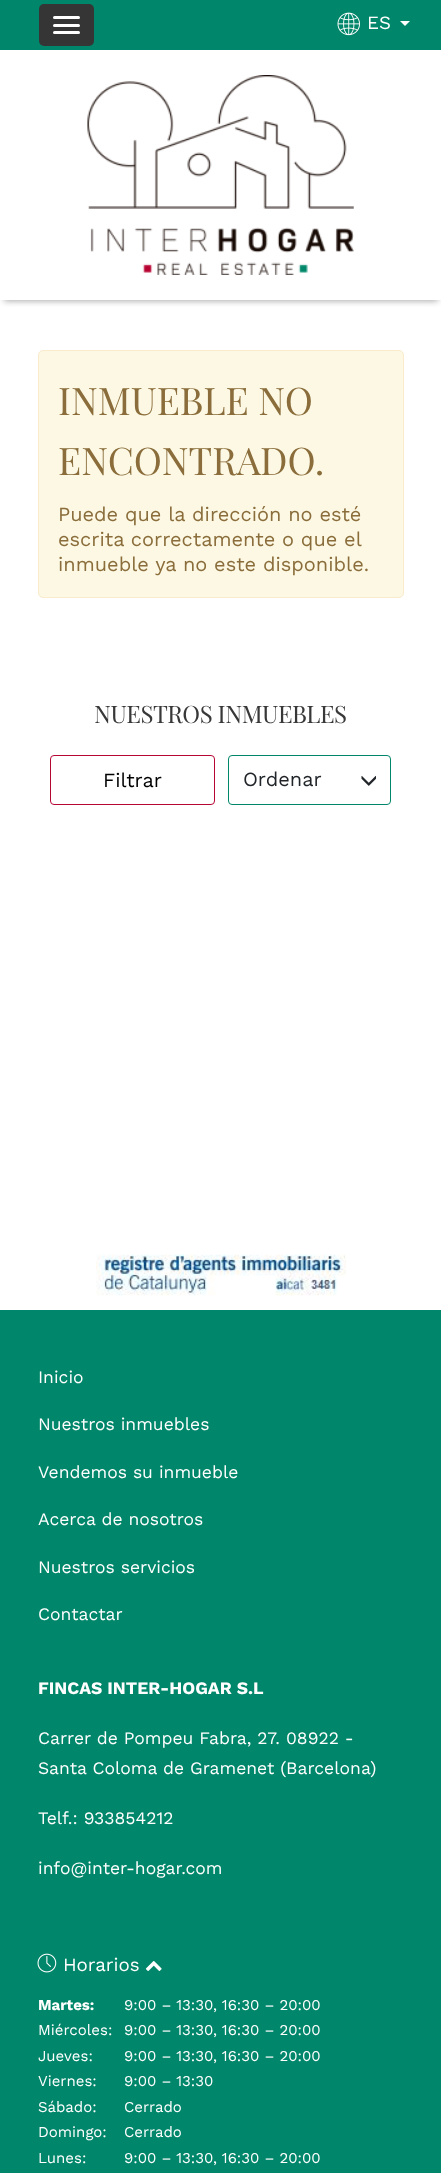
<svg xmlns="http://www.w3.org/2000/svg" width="441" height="2173">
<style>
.a{font:18.75px Work Sans;fill:#fff}
.b{font:38px Playfair Display;fill:#8a6d3b}
.c{font:20px Work Sans;fill:#8a6d3b}
.d{font:24px Playfair Display;letter-spacing:-0.5px;fill:#383838}
.e{font:20px Work Sans;fill:#000}
.f{font:20px Work Sans;fill:#212529}
.g{font:17.5px Work Sans;fill:#fff}
.h{font:bold 17.5px Work Sans;fill:#fff}
.i{font:bold 15px Work Sans;fill:#fff}
.j{font:15px Work Sans;fill:#fff}
</style>
<defs>
<clipPath id="clip1"><path d="M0 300h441v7H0z"/></clipPath>
</defs>
<rect width="100%" height="100%" fill="#fff"/>
<path fill="#00866a" d="M0 0h441v50H0z"/>
<rect fill="#353535" x="39" y="4" width="55" height="42" rx="5"/>
<rect fill="#fff" x="53" y="16" width="27" height="3" rx="1.5"/>
<rect fill="#fff" x="53" y="24" width="27" height="3" rx="1.5"/>
<rect fill="#fff" x="53" y="31" width="27" height="3" rx="1.5"/>
<image href="1.png" x="337" y="12" width="23" height="24"/>
<path fill="#fff" d="M400 21h10l-5 5z"/>
<g clip-path="url(#clip1)">
<path fill="#aaa" filter="blur(3px)" d="M4 59h434v242H4z"/>
</g>
<image href="2.png" x="87" y="75" width="267" height="200"/>
<rect fill="#fcf8e3" stroke="#faebcc" x="38.5" y="350.5" width="365" height="247" rx="4.5"/>
<rect fill="none" stroke="#b60634" x="50.5" y="755.5" width="164" height="49" rx="3.5"/>
<rect fill="none" stroke="#00866a" x="228.5" y="755.5" width="162" height="49" rx="3.5"/>
<image href="3.png" x="361" y="775" width="15" height="11"/>
<image href="4.png" x="96" y="1254" width="250" height="42"/>
<path fill="#00866a" d="M0 1310h441v863H0z"/>
<image href="5.png" x="37" y="1953" width="20" height="20"/>
<image href="6.png" x="145" y="1961" width="17" height="10"/>
<text class="a" x="367" y="29">ES</text>
<text class="b" x="58" y="415">INMUEBLE NO</text>
<text class="b" x="58" y="475">ENCONTRADO.</text>
<text class="c" x="58" y="521">Puede que la dirección no esté</text>
<text class="c" x="58" y="546">escrita correctamente o que el</text>
<text class="c" x="58" y="571">inmueble ya no este disponible.</text>
<text class="d" x="94" y="723">NUESTROS INMUEBLES</text>
<text class="e" x="103" y="787">Filtrar</text>
<text class="f" x="243" y="786">Ordenar</text>
<text class="g" x="38" y="1383">Inicio</text>
<text class="g" x="38" y="1430">Nuestros inmuebles</text>
<text class="g" x="38" y="1478">Vendemos su inmueble</text>
<text class="g" x="38" y="1525">Acerca de nosotros</text>
<text class="g" x="38" y="1573">Nuestros servicios</text>
<text class="g" x="38" y="1620">Contactar</text>
<text class="h" x="38" y="1694">FINCAS INTER-HOGAR S.L</text>
<text class="g" x="38" y="1744">Carrer de Pompeu Fabra, 27. 08922 -</text>
<text class="g" x="38" y="1774">Santa Coloma de Gramenet (Barcelona)</text>
<text class="g" x="38" y="1824">Telf.: 933854212</text>
<text class="g" x="38" y="1874">info@inter-hogar.com</text>
<text class="a" x="63" y="1971">Horarios</text>
<text class="i" x="38" y="2010">Martes:</text>
<text class="j" x="124" y="2010">9:00 – 13:30, 16:30 – 20:00</text>
<text class="j" x="38" y="2035">Miércoles:</text>
<text class="j" x="124" y="2035">9:00 – 13:30, 16:30 – 20:00</text>
<text class="j" x="38" y="2061">Jueves:</text>
<text class="j" x="124" y="2061">9:00 – 13:30, 16:30 – 20:00</text>
<text class="j" x="38" y="2086">Viernes:</text>
<text class="j" x="124" y="2086">9:00 – 13:30</text>
<text class="j" x="38" y="2112">Sábado:</text>
<text class="j" x="124" y="2112">Cerrado</text>
<text class="j" x="38" y="2137">Domingo:</text>
<text class="j" x="124" y="2137">Cerrado</text>
<text class="j" x="38" y="2163">Lunes:</text>
<text class="j" x="124" y="2163">9:00 – 13:30, 16:30 – 20:00</text>
</svg>
